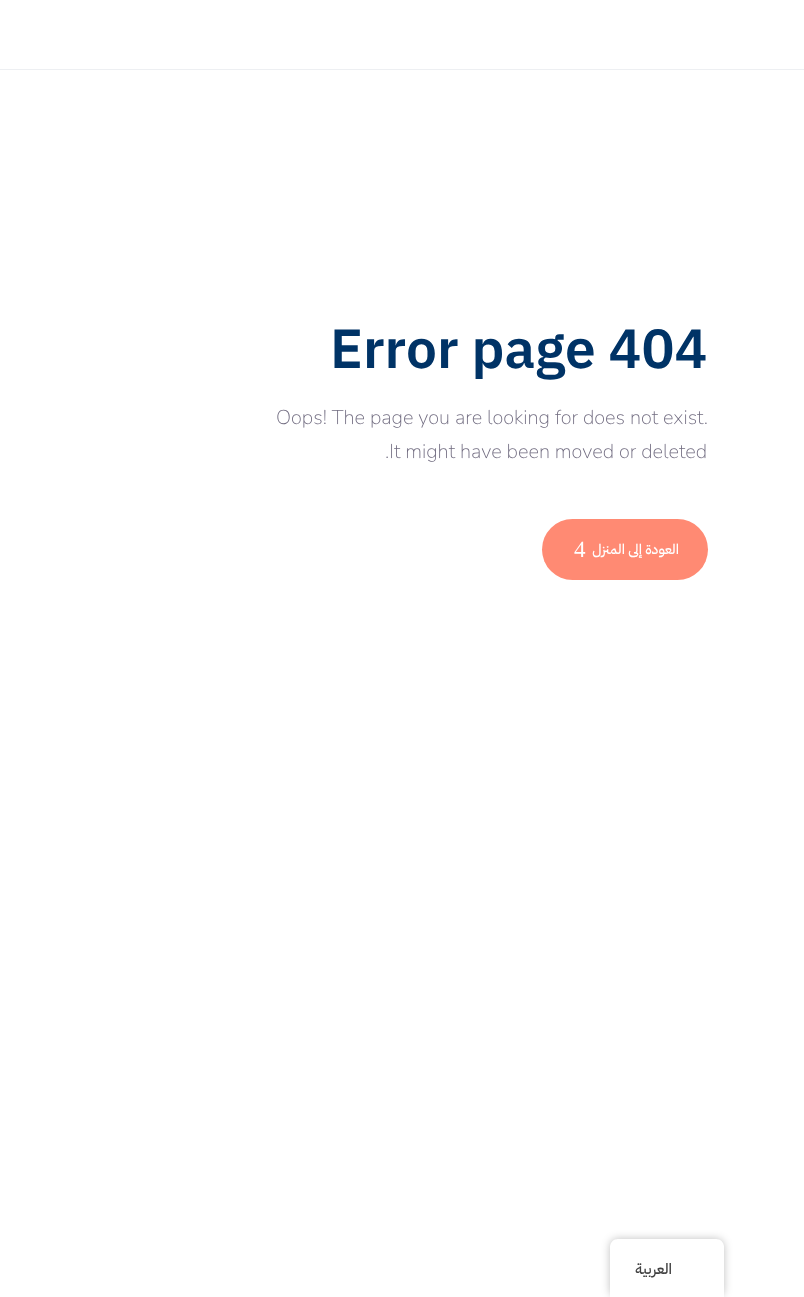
<svg xmlns="http://www.w3.org/2000/svg" width="804" height="1297">
<style>
.a{font:600 55px IBM Plex Sans Arabic;fill:#036}
.b{font:200 20px Nunito;fill:#716c80}
.c{font:23px Liberation Serif;fill:#fff}
.d{font:500 14px IBM Plex Sans Arabic;direction:rtl;fill:#fff}
.e{font:500 15px IBM Plex Sans Arabic;direction:rtl;fill:#404040}
</style>
<rect width="100%" height="100%" fill="#fff"/>
<path fill="#edeff2" d="M0 69h804v1H0z"/>
<rect fill="#ff8a73" x="542" y="519" width="166" height="61" rx="30.5"/>
<rect fill="#00000040" filter="blur(4px)" x="610" y="1239" width="114" height="58" rx="8"/>
<path fill="#fff" d="M618 1239h98c4.5 0 8 3.5 8 8v50h-114v-50c0-4.5 3.5-8 8-8z"/>
<text class="a" x="330" y="368">Error page 404</text>
<text class="b" x="276" y="424">Oops! The page you are looking for does not exist.</text>
<text class="b" x="385" y="458">.It might have been moved or deleted</text>
<text class="c" x="574" y="557">4</text>
<text class="d" x="679" y="554">العودة إلى المنزل</text>
<text class="e" x="672" y="1274">العربية</text>
</svg>
